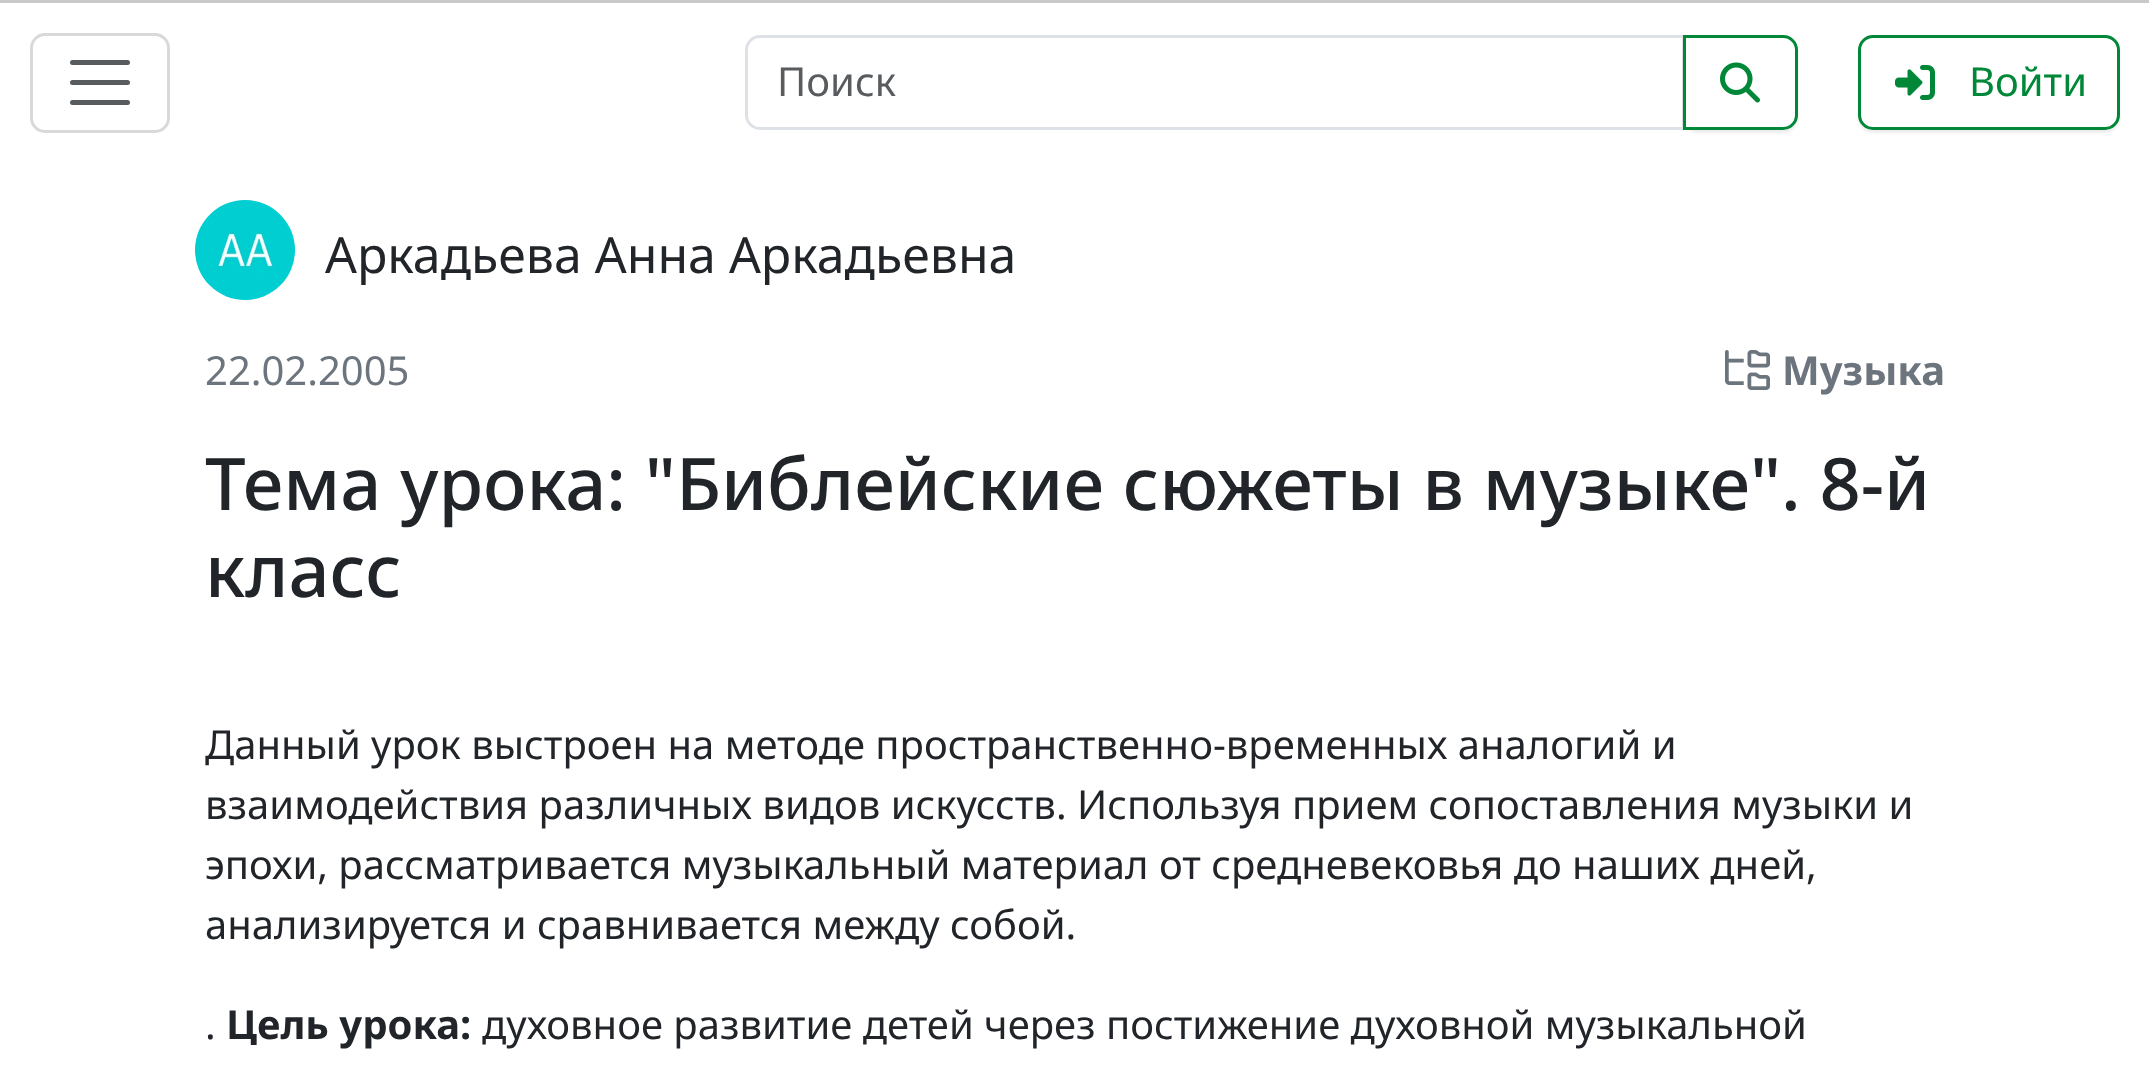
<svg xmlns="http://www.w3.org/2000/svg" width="2149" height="1091">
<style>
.a{font:40px Noto Sans;fill:#595c5f}
.b{font:40px Noto Sans;fill:#008738}
.c{font:50px Noto Sans;fill:#212529}
.d{font:40px Noto Sans;fill:#6c757d}
.e{font:bold 40px Noto Sans;fill:#6c757d}
.f{font:500 72.35px Noto Sans;fill:#212529}
.g{font:40px Noto Sans;fill:#212529}
.h{font:bold 40px Noto Sans;fill:#212529}
</style>
<defs>
<clipPath id="clip1"><path d="M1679 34h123v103h-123zm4 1h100c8.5 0 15 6.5 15 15v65c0 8.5-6.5 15-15 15h-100z" clip-rule="evenodd"/></clipPath>
<clipPath id="clip2"><path d="M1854 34h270v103h-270zm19 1h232c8.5 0 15 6.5 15 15v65c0 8.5-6.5 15-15 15h-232c-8.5 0-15-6.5-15-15v-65c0-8.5 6.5-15 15-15z" clip-rule="evenodd"/></clipPath>
</defs>
<rect width="100%" height="100%" fill="#fff"/>
<path fill="#c8c9ca" d="M0 0h2149v3H0z"/>
<rect fill="none" stroke="#d9d9d9" stroke-width="3" x="31.5" y="34.5" width="137" height="97" rx="13.5"/>
<path fill="none" stroke="#595c5f" stroke-width="5" stroke-linecap="round" d="M72.5 62.5h55m-55 20h55m-55 20h55"/>
<path fill="none" stroke="#dee2e6" stroke-width="3" d="M760 36.5h923.5v92h-923.5c-7.5 0-13.5-6-13.5-13.5v-65c0-7.5 6-13.5 13.5-13.5z"/>
<g clip-path="url(#clip1)">
<rect fill="#00000012" filter="blur(1px)" x="1683" y="38" width="115" height="95" rx="15"/>
</g>
<path fill="none" stroke="#008738" stroke-width="3" d="M1684.5 36.5h98.5c7.5 0 13.5 6 13.5 13.5v65c0 7.5-6 13.5-13.5 13.5h-98.5z"/>
<image href="1.png" x="1720" y="62" width="40" height="41"/>
<g clip-path="url(#clip2)">
<rect fill="#00000012" filter="blur(1px)" x="1858" y="38" width="262" height="95" rx="15"/>
</g>
<rect fill="none" stroke="#008738" stroke-width="3" x="1859.5" y="36.5" width="259" height="92" rx="13.5"/>
<image href="2.png" x="1895" y="65" width="40" height="35"/>
<image href="3.png" x="195" y="200" width="100" height="100"/>
<image href="4.png" x="1725" y="350" width="45" height="40"/>
<text class="a" x="777" y="96">Поиск</text>
<text class="b" x="1969" y="96">Войти</text>
<text class="c" x="325" y="273">Аркадьева Анна Аркадьевна</text>
<text class="d" x="205" y="385">22.02.2005</text>
<text class="e" x="1782" y="385">Музыка</text>
<text class="f" x="205" y="510">Тема урока: "Библейские сюжеты в музыке". 8-й</text>
<text class="f" x="205" y="597">класс</text>
<text class="g" x="205" y="759">Данный урок выстроен на методе пространственно-временных аналогий и</text>
<text class="g" x="205" y="819">взаимодействия различных видов искусств. Используя прием сопоставления музыки и</text>
<text class="g" x="205" y="879">эпохи, рассматривается музыкальный материал от средневековья до наших дней,</text>
<text class="g" x="205" y="939">анализируется и сравнивается между собой.</text>
<text class="g" x="205" y="1039">.</text>
<text class="h" x="226" y="1039">Цель урока:</text>
<text class="g" x="482" y="1039">духовное развитие детей через постижение духовной музыкальной</text>
</svg>
